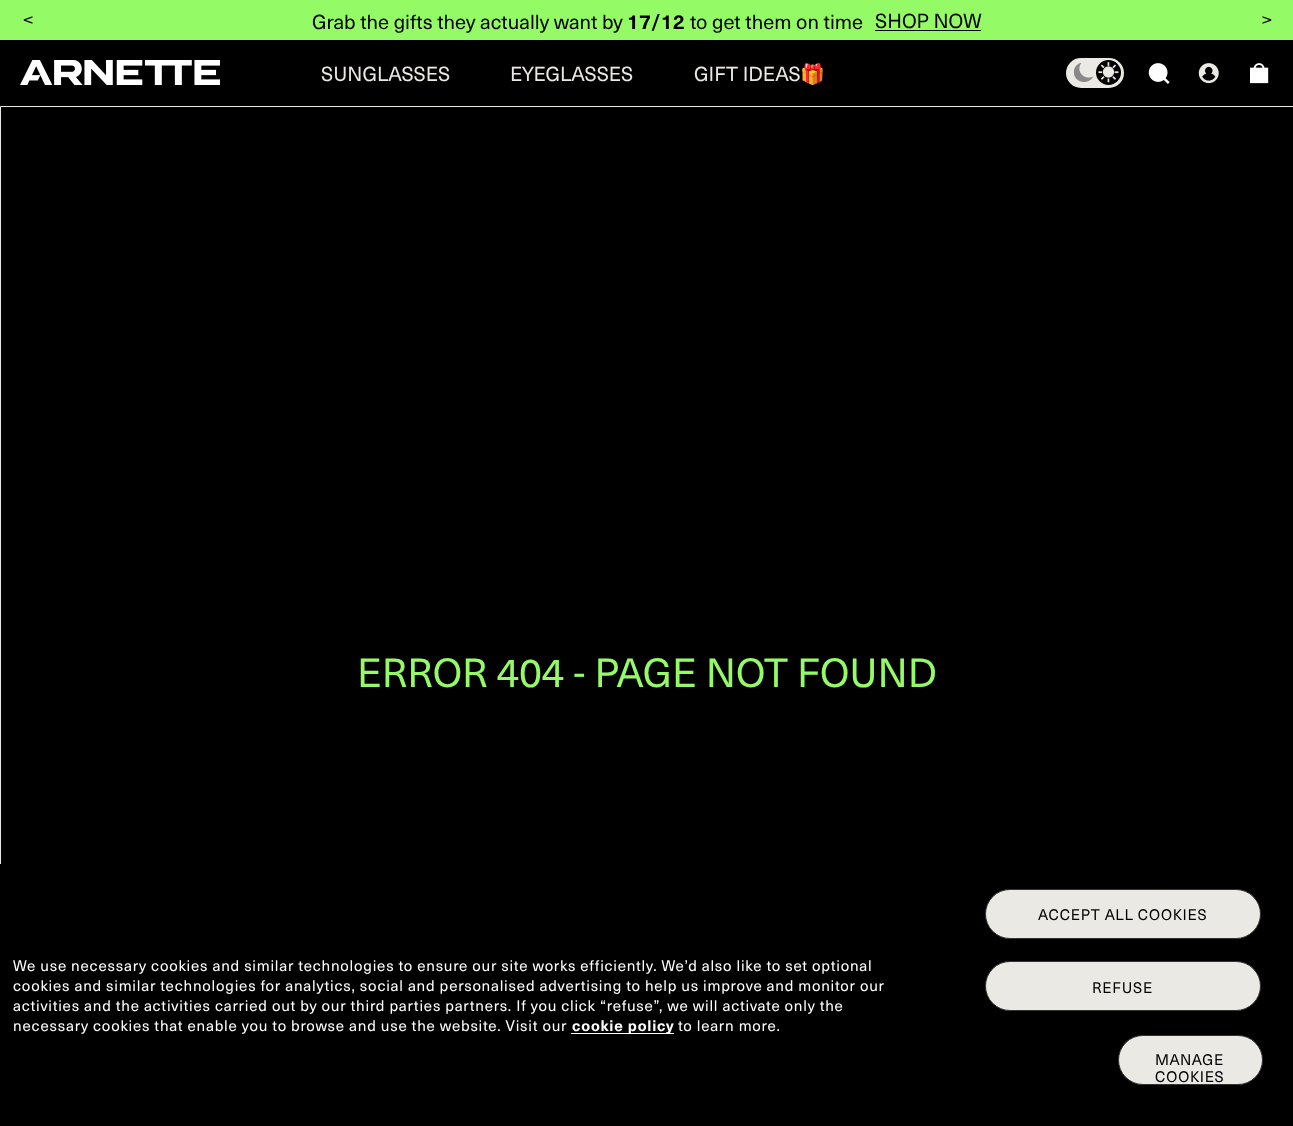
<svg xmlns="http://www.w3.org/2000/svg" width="1293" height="1126">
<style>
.a{font:20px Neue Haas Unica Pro;fill:#000}
.b{font:bold 20px Neue Haas Unica Pro;fill:#000}
.c{font:20px Neue Haas Unica Pro;fill:#ebe9e4}
.d{font:20px Noto Color Emoji;fill:#ebe9e4}
.e{font:40px Neue Haas Unica Pro;fill:#94fa66}
.f{font:15px Neue Haas Unica Pro;letter-spacing:0.75px;fill:#fff}
.g{font:bold 15px Neue Haas Unica Pro;letter-spacing:0.75px;fill:#fff}
.h{font:15px Neue Haas Unica Pro;letter-spacing:0.75px;fill:#000}
</style>
<rect width="100%" height="100%" fill="#000"/>
<path fill="#94fa66" d="M0 0h1293v40H0z"/>
<image href="1.png" x="23" y="16" width="10" height="8"/>
<path fill="#000" d="M875 30h106v1H875z"/>
<image href="2.png" x="1262" y="16" width="10" height="8"/>
<image href="3.png" x="20" y="60" width="200" height="25"/>
<rect fill="#ebe9e4" x="1066" y="58" width="58" height="30" rx="15"/>
<circle fill="#000" cx="1108.5" cy="72.5" r="12.5"/>
<image href="4.png" x="1074" y="63" width="20" height="19"/>
<image href="5.png" x="1098" y="62" width="21" height="21"/>
<image href="6.png" x="1148" y="63" width="22" height="21"/>
<image href="7.png" x="1198" y="63" width="21" height="21"/>
<image href="8.png" x="1250" y="63" width="19" height="21"/>
<path fill="none" stroke="#ebe9e4" d="M0.5 106.5h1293v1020H0.5z"/>
<path fill="#000" d="M0 864h1v262H0z"/>
<path fill="#fff" d="M571 1033h103v1H571z"/>
<rect fill="#ebe9e4" stroke="#333" x="985.5" y="889.5" width="275" height="49" rx="24.5"/>
<rect fill="#ebe9e4" stroke="#333" x="985.5" y="961.5" width="275" height="49" rx="24.5"/>
<rect fill="#ebe9e4" stroke="#333" x="1118.5" y="1035.5" width="144" height="49" rx="24.5"/>
<text class="a" x="312" y="29">Grab the gifts they actually want by</text>
<text class="b" x="627" y="29">17/12</text>
<text class="a" x="690" y="29">to get them on time</text>
<text class="a" x="875" y="28">SHOP NOW</text>
<text class="c" x="321" y="81">SUNGLASSES</text>
<text class="c" x="510" y="81">EYEGLASSES</text>
<text class="c" x="694" y="81">GIFT IDEAS</text>
<text class="d" x="800" y="81">🎁</text>
<text class="e" x="357" y="687">ERROR 404 - PAGE NOT FOUND</text>
<text class="f" x="13" y="971">We use necessary cookies and similar technologies to ensure our site works efficiently. We’d also like to set optional</text>
<text class="f" x="13" y="991">cookies and similar technologies for analytics, social and personalised advertising to help us improve and monitor our</text>
<text class="f" x="13" y="1011">activities and the activities carried out by our third parties partners. If you click “refuse”, we will activate only the</text>
<text class="f" x="13" y="1031">necessary cookies that enable you to browse and use the website. Visit our</text>
<text class="g" x="572" y="1031">cookie policy</text>
<text class="f" x="678" y="1031">to learn more.</text>
<text class="h" x="1038" y="920">ACCEPT ALL COOKIES</text>
<text class="h" x="1092" y="993">REFUSE</text>
<text class="h" x="1155" y="1065">MANAGE</text>
<text class="h" x="1155" y="1082">COOKIES</text>
</svg>
